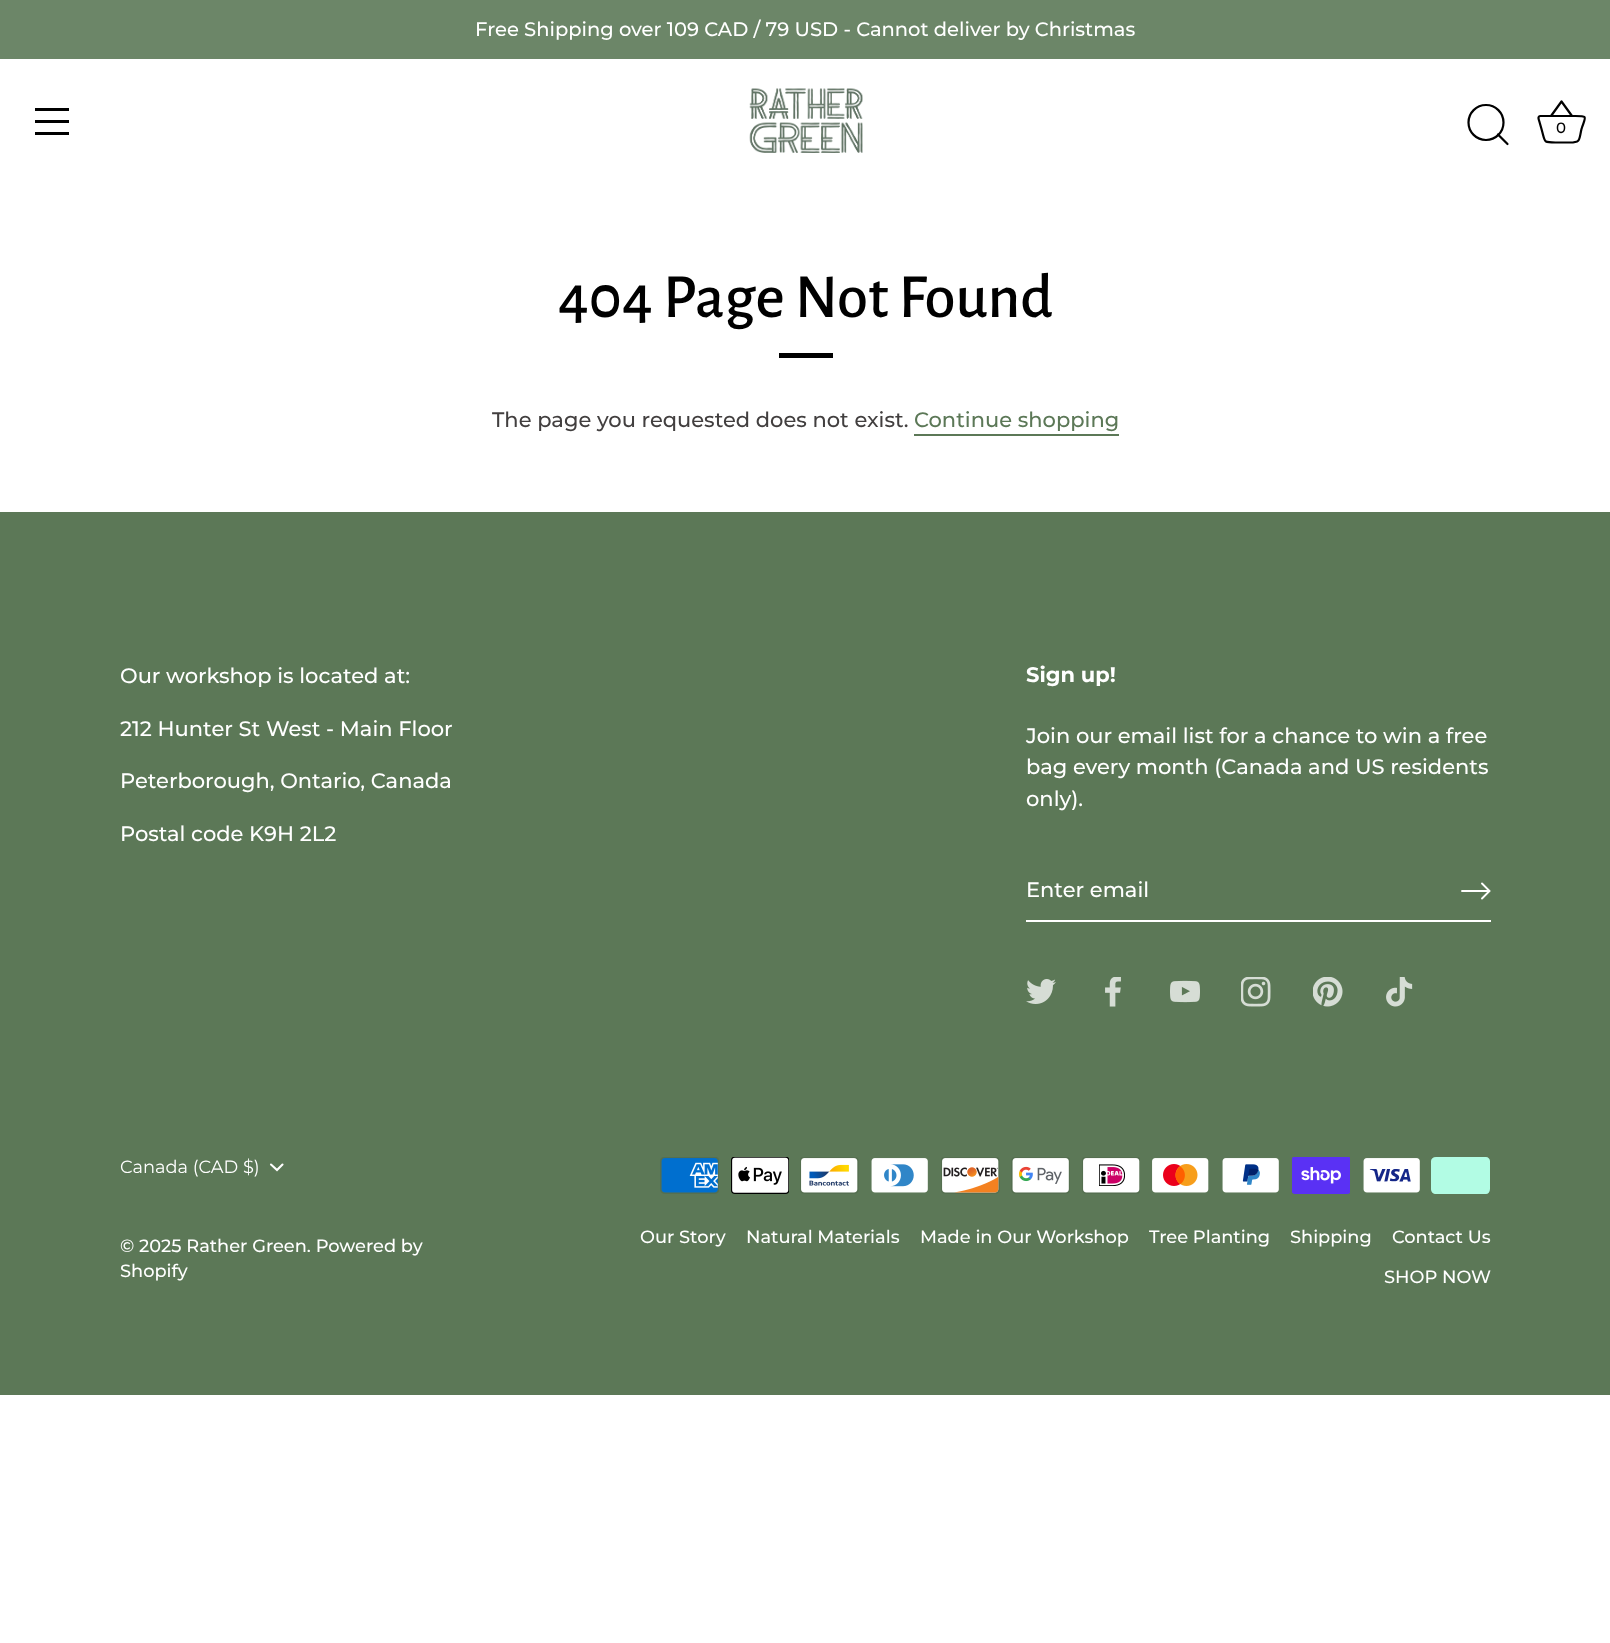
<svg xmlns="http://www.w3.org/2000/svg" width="1610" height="1643">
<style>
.a{font:500 19.5px Montserrat;fill:#fff}
.b{font:500 15px Montserrat;fill:#000}
.c{font:500 63px Alegreya Sans;fill:#000}
.d{font:500 21px Montserrat;fill:#423f3f}
.e{font:500 21px Montserrat;fill:#5c7857}
.f{font:500 21px Montserrat;fill:#fff}
.g{font:bold 21px Montserrat;fill:#fff}
.h{font:17.8px Montserrat;fill:#fff}
.i{font:500 17.8px Montserrat;fill:#fff}
</style>
<rect width="100%" height="100%" fill="#fff"/>
<path fill="#6c8668" d="M0 0h1610v59H0z"/>
<path fill="#000" d="M35 108h34v3H35z"/>
<path fill="#000" d="M35 120h34v3H35z"/>
<path fill="#000" d="M35 132h34v3H35z"/>
<image href="1.png" x="749" y="88" width="114" height="65"/>
<circle fill="none" stroke="#000" stroke-width="2.2" cx="1486" cy="122.5" r="17.5"/>
<path fill="none" stroke="#000" stroke-width="2.2" stroke-linecap="round" stroke-linejoin="round" d="M1507.5 144l-9.5-9.5"/>
<path fill="none" stroke="#000" stroke-width="2.2" stroke-linejoin="round" d="M1540.5 116c-3.5 0-1.5 4.5-1 6l2 7c4 14 1 13.5 15.5 13.5h13c11 0 9-3 11.5-13.5c4-12.5 7-13-6-13h-35m10.5 0l10.5-14.5l10.5 14.5"/>
<path fill="#000" d="M779 353h54v5H779z"/>
<path fill="#5c7857" d="M914 434h205v2H914z"/>
<path fill="#5c7857" d="M0 512h1610v883H0z"/>
<path fill="#fff" d="M1026 920h465v2H1026z"/>
<path fill="none" stroke="#fff" stroke-width="1.9" stroke-linecap="round" d="M1482 898.5l7.5-7.5l-7.5-7.5"/>
<path fill="none" stroke="#fff" stroke-width="1.9" stroke-linecap="round" stroke-linejoin="round" d="M1488.5 891h-26.5"/>
<image href="2.png" x="1026" y="979" width="30" height="25"/>
<image href="3.png" x="1105" y="977" width="16" height="30"/>
<image href="4.png" x="1170" y="980" width="30" height="23"/>
<image href="5.png" x="1241" y="977" width="30" height="30"/>
<image href="6.png" x="1313" y="977" width="30" height="30"/>
<image href="7.png" x="1386" y="977" width="27" height="30"/>
<path fill="none" stroke="#fff" stroke-width="2.1" stroke-linecap="round" d="M271 1164.5l6 5.5l5.5-5.5"/>
<image href="8.png" x="660" y="1157" width="59" height="37"/>
<image href="9.png" x="731" y="1157" width="58" height="37"/>
<image href="10.png" x="800" y="1157" width="59" height="37"/>
<image href="11.png" x="871" y="1158" width="57" height="35"/>
<image href="12.png" x="941" y="1157" width="59" height="37"/>
<image href="13.png" x="1011" y="1157" width="59" height="37"/>
<image href="14.png" x="1082" y="1157" width="58" height="37"/>
<image href="15.png" x="1152" y="1158" width="57" height="35"/>
<image href="16.png" x="1222" y="1158" width="57" height="35"/>
<image href="17.png" x="1292" y="1157" width="58" height="37"/>
<image href="18.png" x="1363" y="1158" width="57" height="35"/>
<path fill="#b2fce4" d="M1486 1157h-50c-3 0-5 2-5 4v28c0 3 2 5 5 5h50c2 0 4-2 4-5v-28c0-2-2-4-4-4z"/>
<text class="a" x="475" y="36">Free Shipping over 109 CAD / 79 USD - Cannot deliver by Christmas</text>
<text class="b" x="1556" y="133">0</text>
<text class="c" x="558" y="317">404 Page Not Found</text>
<text class="d" x="492" y="427">The page you requested does not exist.</text>
<text class="e" x="914" y="427">Continue shopping</text>
<text class="f" x="120" y="683">Our workshop is located at:</text>
<text class="f" x="120" y="736">212 Hunter St West - Main Floor</text>
<text class="f" x="120" y="788">Peterborough, Ontario, Canada</text>
<text class="f" x="120" y="841">Postal code K9H 2L2</text>
<text class="g" x="1026" y="682">Sign up!</text>
<text class="f" x="1026" y="743">Join our email list for a chance to win a free</text>
<text class="f" x="1026" y="774">bag every month (Canada and US residents</text>
<text class="f" x="1026" y="806">only).</text>
<text class="f" x="1026" y="897">Enter email</text>
<text class="h" x="120" y="1173">Canada (CAD $)</text>
<text class="i" x="120" y="1252">© 2025 Rather Green. Powered by</text>
<text class="i" x="120" y="1277">Shopify</text>
<text class="i" x="640" y="1243">Our Story</text>
<text class="i" x="746" y="1243">Natural Materials</text>
<text class="i" x="920" y="1243">Made in Our Workshop</text>
<text class="i" x="1149" y="1243">Tree Planting</text>
<text class="i" x="1290" y="1243">Shipping</text>
<text class="i" x="1392" y="1243">Contact Us</text>
<text class="i" x="1384" y="1283">SHOP NOW</text>
</svg>
